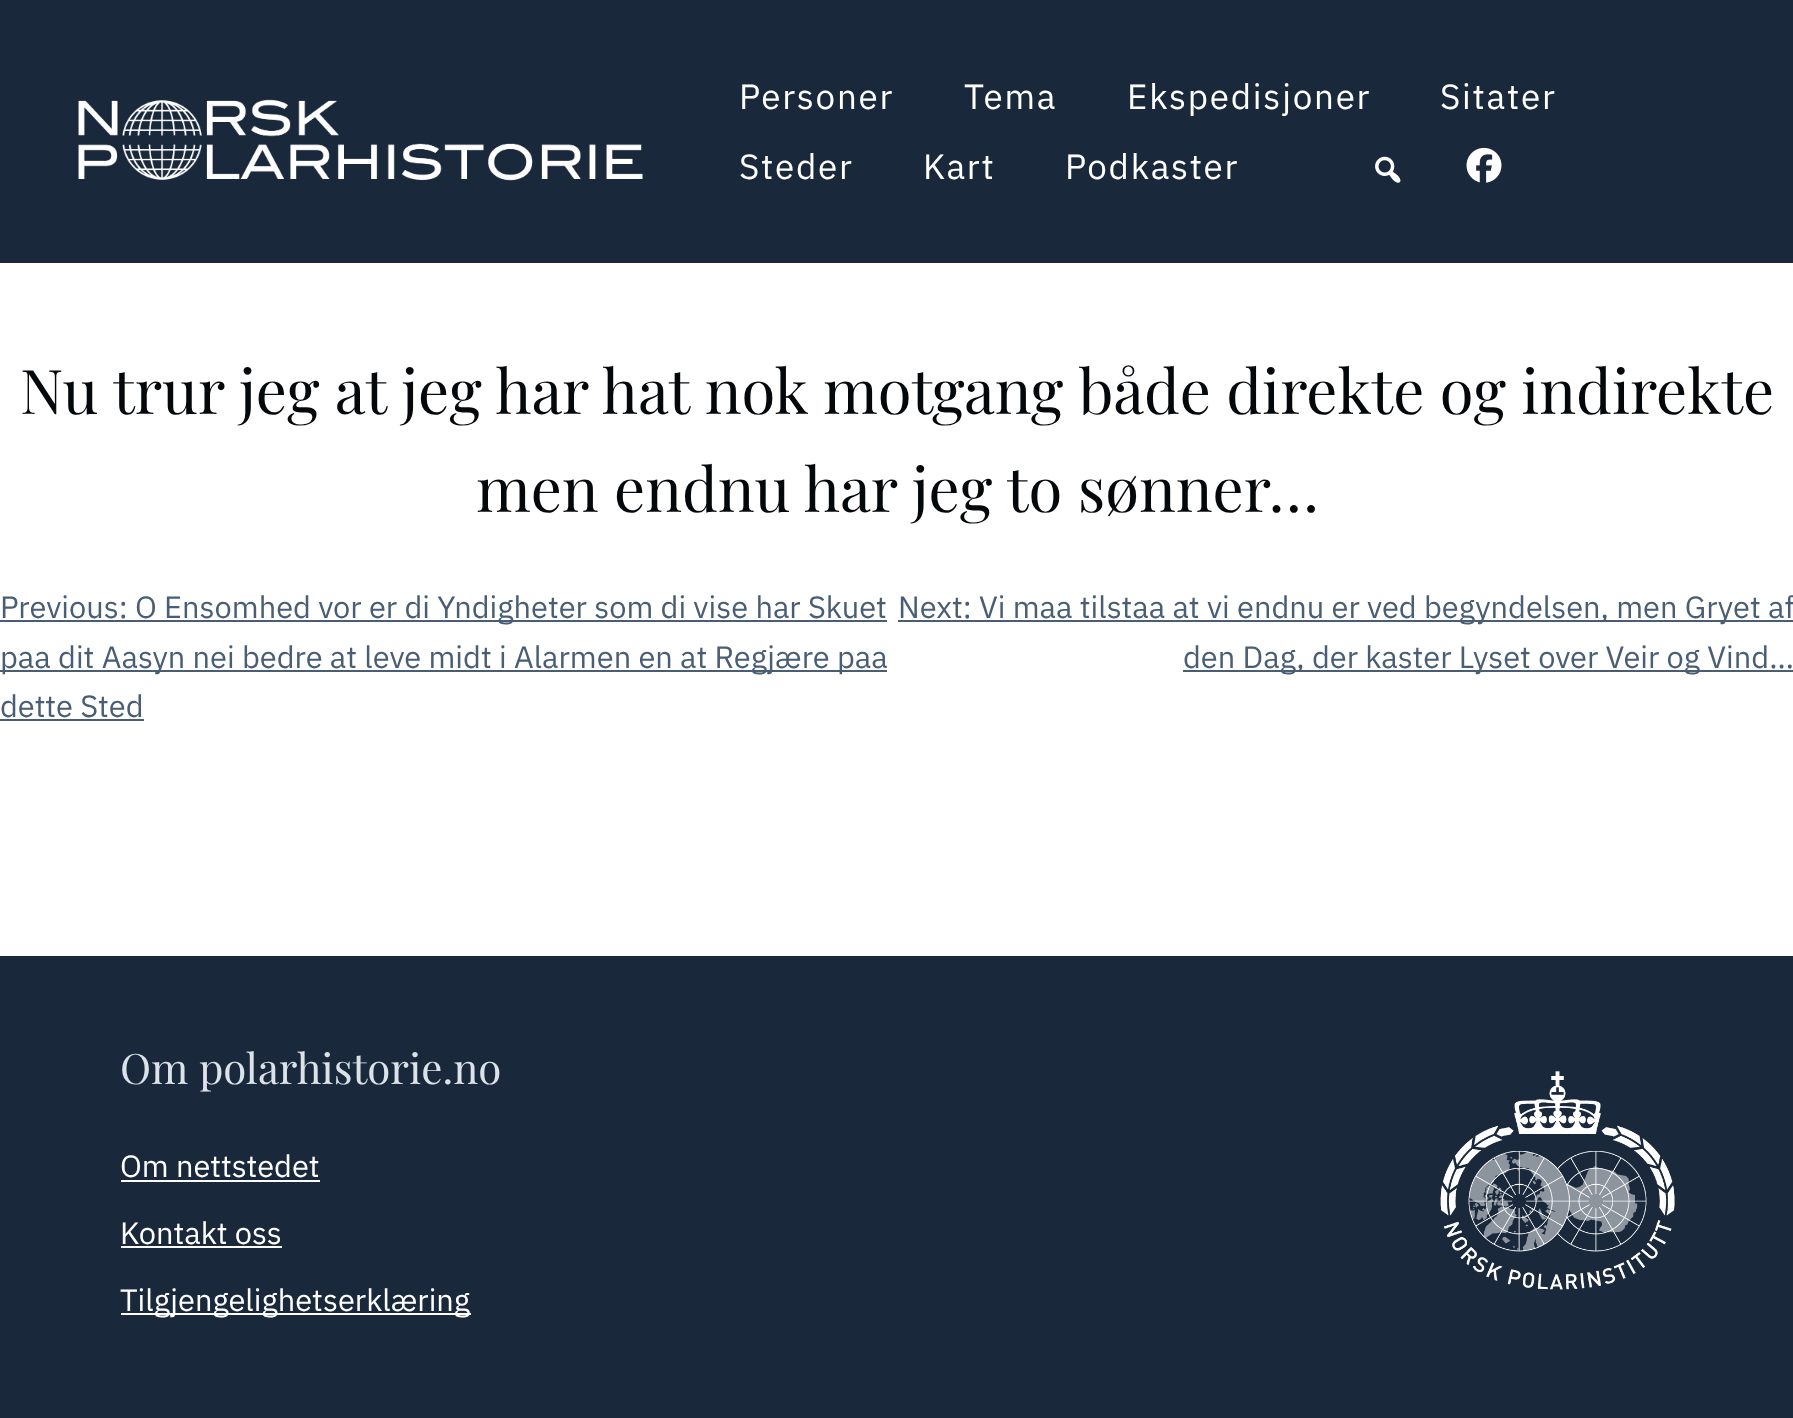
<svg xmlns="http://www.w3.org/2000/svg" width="1793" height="1418">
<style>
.a{font:35px IBM Plex Sans;letter-spacing:1.75px;fill:#fff}
.b{font:61.6px Playfair Display;fill:#05080b}
.c{font:30.8px IBM Plex Sans;fill:#495e75}
.d{font:42px Playfair Display;fill:#dbe3e8}
.e{font:30.8px IBM Plex Sans;fill:#fff}
</style>
<rect width="100%" height="100%" fill="#fff"/>
<path fill="#19283b" d="M0 0h1793v263H0z"/>
<image href="1.png" x="78" y="99" width="565" height="82"/>
<image href="2.png" x="1375" y="156" width="26" height="27"/>
<image href="3.png" x="1466" y="147" width="36" height="36"/>
<path fill="#495e75" d="M0 620h887v2H0z"/>
<path fill="#495e75" d="M0 670h887v2H0z"/>
<path fill="#495e75" d="M0 719h144v2H0z"/>
<path fill="#495e75" d="M898 620h895v2H898z"/>
<path fill="#495e75" d="M1183 670h610v2H1183z"/>
<path fill="#19283b" d="M0 956h1793v462H0z"/>
<path fill="#fff" d="M121 1180h199v2H121z"/>
<path fill="#fff" d="M121 1246h161v2H121z"/>
<path fill="#fff" d="M121 1313h350v2H121z"/>
<image href="4.png" x="1440" y="1071" width="235" height="219"/>
<text class="a" x="739" y="109">Personer</text>
<text class="a" x="964" y="109">Tema</text>
<text class="a" x="1127" y="109">Ekspedisjoner</text>
<text class="a" x="1440" y="109">Sitater</text>
<text class="a" x="739" y="179">Steder</text>
<text class="a" x="923" y="179">Kart</text>
<text class="a" x="1065" y="179">Podkaster</text>
<text class="b" x="20" y="414">Nu trur jeg at jeg har hat nok motgang både direkte og indirekte</text>
<text class="b" x="476" y="512">men endnu har jeg to sønner…</text>
<text class="c" x="0" y="618">Previous: O Ensomhed vor er di Yndigheter som di vise har Skuet</text>
<text class="c" x="0" y="668">paa dit Aasyn nei bedre at leve midt i Alarmen en at Regjære paa</text>
<text class="c" x="0" y="717">dette Sted</text>
<text class="c" x="898" y="618">Next: Vi maa tilstaa at vi endnu er ved begyndelsen, men Gryet af</text>
<text class="c" x="1183" y="668">den Dag, der kaster Lyset over Veir og Vind…</text>
<text class="d" x="120" y="1084">Om polarhistorie.no</text>
<text class="e" x="120" y="1177">Om nettstedet</text>
<text class="e" x="120" y="1244">Kontakt oss</text>
<text class="e" x="120" y="1311">Tilgjengelighetserklæring</text>
</svg>
